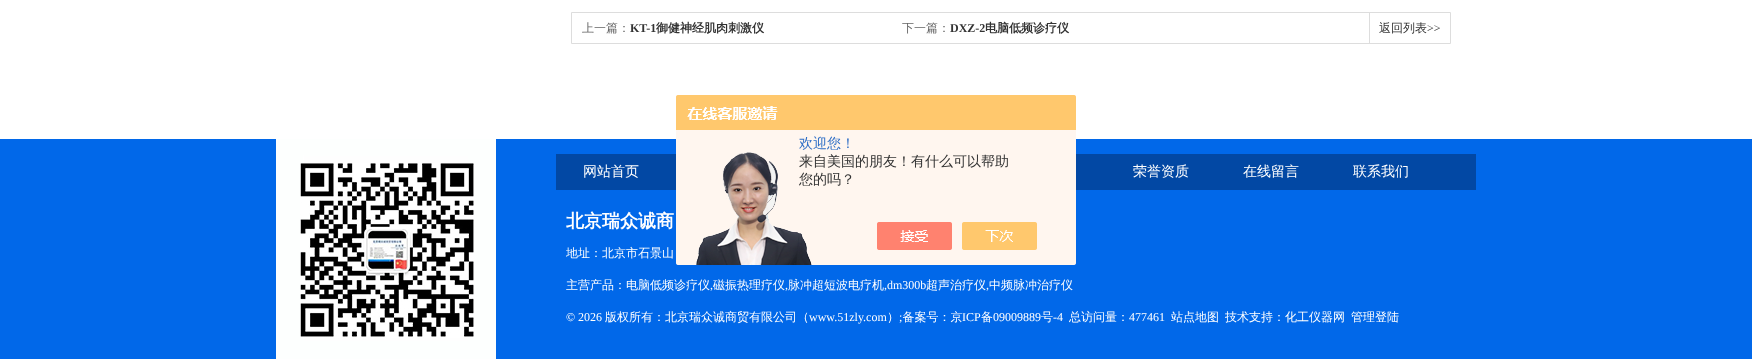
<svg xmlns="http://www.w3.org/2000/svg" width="1752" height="359">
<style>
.a{font:500 12px WenQuanYi Zen Hei;fill:#666}
.b{font:bold 12px Liberation Serif;fill:#333}
.c{font:bold 12px WenQuanYi Zen Hei;fill:#333}
.d{font:500 12px WenQuanYi Zen Hei;fill:#333}
.e{font:12px Liberation Serif;fill:#333}
.f{font:500 14px WenQuanYi Zen Hei;fill:#2e6ec6}
.g{font:500 14px WenQuanYi Zen Hei;fill:#333}
.h{font:500 14px WenQuanYi Zen Hei;fill:#fff}
.i{font:bold 18px WenQuanYi Zen Hei;fill:#fff}
.j{font:500 12px WenQuanYi Zen Hei;fill:#fff}
.k{font:12px Liberation Serif;fill:#fff}
</style>
<rect width="100%" height="100%" fill="#fff"/>
<path fill="none" stroke="#ddd" d="M571.5 12.5h879v31H571.5z"/>
<path fill="#ddd" d="M1369 13h1v30H1369z"/>
<path fill="#0168e9" d="M0 139h1752v220H0z"/>
<path fill="#0248a4" d="M556 154h920v36H556z"/>
<image href="1.png" x="676" y="95" width="400" height="170"/>
<image href="2.png" x="276" y="139" width="220" height="220"/>
<text class="a" x="582" y="32">上一篇：</text>
<text class="b" x="630" y="32">KT-1</text>
<text class="c" x="656" y="32">御健神经肌肉刺激仪</text>
<text class="a" x="902" y="32">下一篇：</text>
<text class="b" x="950" y="32">DXZ-2</text>
<text class="c" x="985" y="32">电脑低频诊疗仪</text>
<text class="d" x="1379" y="32">返回列表</text>
<text class="e" x="1427" y="32">&gt;&gt;</text>
<text class="f" x="799" y="148">欢迎您！</text>
<text class="g" x="799" y="166">来自美国的朋友！有什么可以帮助</text>
<text class="g" x="799" y="184">您的吗？</text>
<text class="h" x="583" y="176">网站首页</text>
<text class="h" x="1133" y="176">荣誉资质</text>
<text class="h" x="1243" y="176">在线留言</text>
<text class="h" x="1353" y="176">联系我们</text>
<text class="i" x="566" y="227">北京瑞众诚商</text>
<text class="j" x="566" y="257">地址：北京市石景山</text>
<text class="j" x="566" y="289">主营产品：电脑低频诊疗仪</text>
<text class="k" x="710" y="289">,</text>
<text class="j" x="713" y="289">磁振热理疗仪</text>
<text class="k" x="785" y="289">,</text>
<text class="j" x="788" y="289">脉冲超短波电疗机</text>
<text class="k" x="884" y="289">,dm300b</text>
<text class="j" x="926" y="289">超声治疗仪</text>
<text class="k" x="986" y="289">,</text>
<text class="j" x="989" y="289">中频脉冲治疗仪</text>
<text class="k" x="566" y="321">© 2026</text>
<text class="j" x="605" y="321">版权所有：北京瑞众诚商贸有限公司（</text>
<text class="k" x="809" y="321">www.51zly.com</text>
<text class="j" x="887" y="321">） 备案号：京</text>
<text class="k" x="962" y="321">ICP</text>
<text class="j" x="981" y="321">备</text>
<text class="k" x="993" y="321">09009889</text>
<text class="j" x="1041" y="321">号</text>
<text class="k" x="1053" y="321">-4</text>
<text class="j" x="1069" y="321">总访问量：</text>
<text class="k" x="1129" y="321">477461</text>
<text class="j" x="1171" y="321">站点地图</text>
<text class="j" x="1225" y="321">技术支持：化工仪器网</text>
<text class="j" x="1351" y="321">管理登陆</text>
<text class="k" x="899" y="321">;</text>
</svg>
